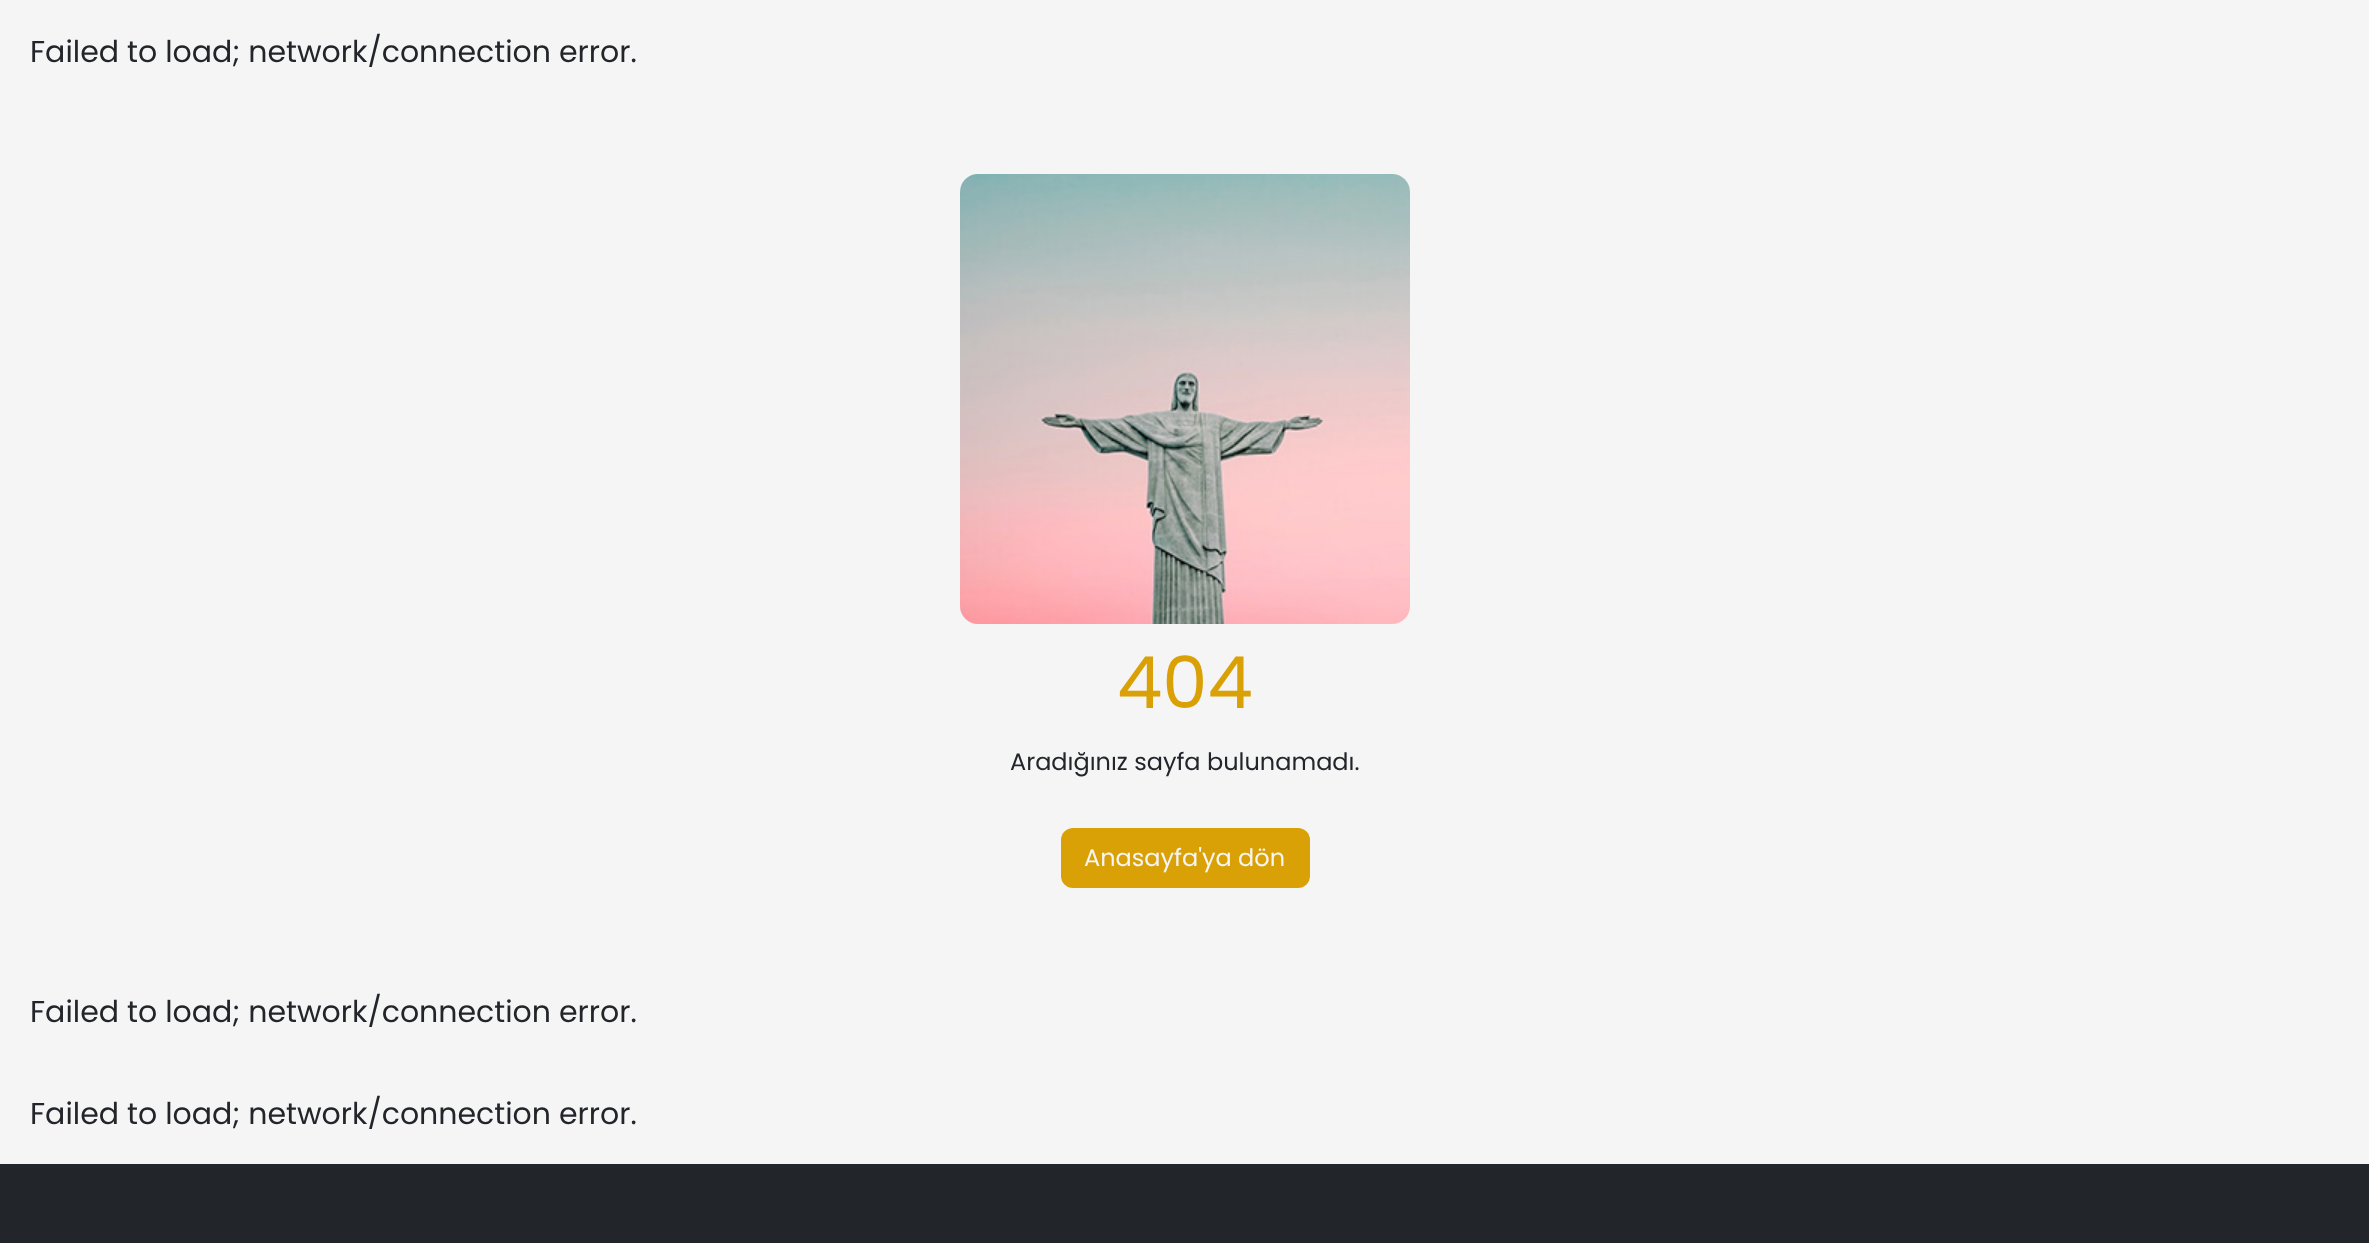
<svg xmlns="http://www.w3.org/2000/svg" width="2369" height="1243">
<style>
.a{font:30px Poppins;fill:#222529}
.b{font:72px Poppins;fill:#daa106}
.c{font:24px Poppins;fill:#222529}
.d{font:24px Poppins;fill:#f5f5f6}
</style>
<rect width="100%" height="100%" fill="#222529"/>
<path fill="#f5f5f6" d="M0 0h2369v1164H0z"/>
<image href="1.png" x="960" y="174" width="450" height="450"/>
<rect fill="#daa106" x="1061" y="828" width="249" height="60" rx="12"/>
<text class="a" x="30" y="62">Failed to load; network/connection error.</text>
<text class="b" x="1117" y="708">404</text>
<text class="c" x="1010" y="770">Aradığınız sayfa bulunamadı.</text>
<text class="d" x="1084" y="866">Anasayfa'ya dön</text>
<text class="a" x="30" y="1022">Failed to load; network/connection error.</text>
<text class="a" x="30" y="1124">Failed to load; network/connection error.</text>
</svg>
